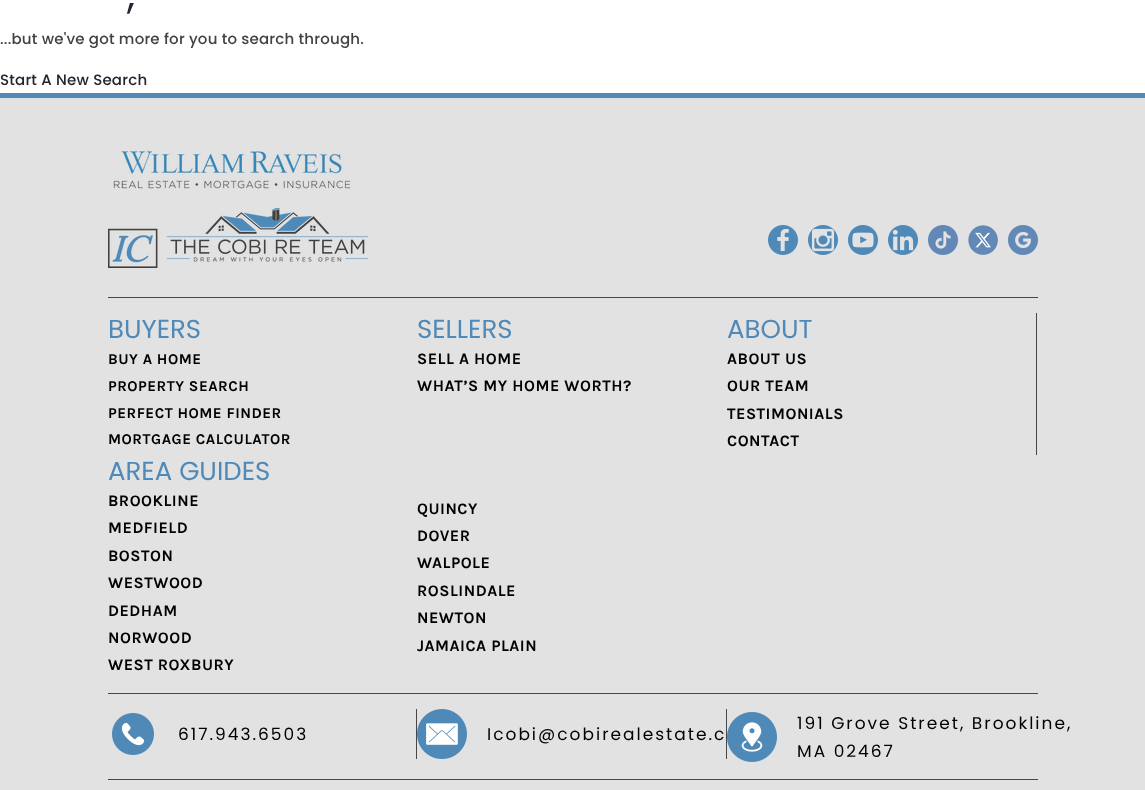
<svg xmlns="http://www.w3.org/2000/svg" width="1145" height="790">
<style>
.a{font:40px Poppins;fill:#252531}
.b{font:500 15px Poppins;letter-spacing:0.2px;fill:#434241}
.c{font:500 15px Poppins;letter-spacing:0.2px;fill:#252531}
.d{font:26px Poppins;fill:#4f89b7}
.e{font:bold 15px Karla;letter-spacing:0.5px;fill:#000}
.f{font:bold 16px Karla;letter-spacing:0.5px;fill:#000}
.g{font:17px Poppins;letter-spacing:2px;fill:#000}
</style>
<rect width="100%" height="100%" fill="#fff"/>
<path fill="#e2e2e2" d="M0 98h1145v692H0z"/>
<path fill="#4f89b7" d="M0 93h1145v5H0z"/>
<image href="1.png" x="113" y="151" width="238" height="38"/>
<image href="2.png" x="108" y="208" width="260" height="60"/>
<image href="3.png" x="768" y="225" width="30" height="30"/>
<image href="4.png" x="808" y="225" width="30" height="30"/>
<image href="5.png" x="848" y="225" width="30" height="30"/>
<image href="6.png" x="888" y="225" width="30" height="30"/>
<image href="7.png" x="928" y="225" width="30" height="30"/>
<image href="8.png" x="968" y="225" width="30" height="30"/>
<image href="9.png" x="1008" y="225" width="30" height="30"/>
<path fill="#474747" d="M108 297h930v1H108z"/>
<path fill="#474747" d="M1036 313h1v142H1036z"/>
<path fill="#474747" d="M108 693h930v1H108z"/>
<path fill="#474747" d="M416 709h1v50H416z"/>
<image href="10.png" x="112" y="713" width="42" height="42"/>
<path fill="#474747" d="M726 709h1v50H726z"/>
<image href="11.png" x="417" y="709" width="50" height="50"/>
<image href="12.png" x="727" y="712" width="50" height="50"/>
<path fill="#474747" d="M108 779h930v1H108z"/>
<text class="a" x="127" y="8">,</text>
<text class="b" x="0" y="44">...but we've got more for you to search through.</text>
<text class="c" x="0" y="85">Start A New Search</text>
<text class="d" x="108" y="338">BUYERS</text>
<text class="e" x="108" y="364">BUY A HOME</text>
<text class="e" x="108" y="391">PROPERTY SEARCH</text>
<text class="e" x="108" y="418">PERFECT HOME FINDER</text>
<text class="e" x="108" y="444">MORTGAGE CALCULATOR</text>
<text class="d" x="417" y="338">SELLERS</text>
<text class="f" x="417" y="364">SELL A HOME</text>
<text class="f" x="417" y="391">WHAT’S MY HOME WORTH?</text>
<text class="d" x="727" y="338">ABOUT</text>
<text class="f" x="727" y="364">ABOUT US</text>
<text class="f" x="727" y="391">OUR TEAM</text>
<text class="f" x="727" y="419">TESTIMONIALS</text>
<text class="f" x="727" y="446">CONTACT</text>
<text class="d" x="108" y="480">AREA GUIDES</text>
<text class="f" x="108" y="506">BROOKLINE</text>
<text class="f" x="108" y="533">MEDFIELD</text>
<text class="f" x="108" y="561">BOSTON</text>
<text class="f" x="108" y="588">WESTWOOD</text>
<text class="f" x="108" y="616">DEDHAM</text>
<text class="f" x="108" y="643">NORWOOD</text>
<text class="f" x="108" y="670">WEST ROXBURY</text>
<text class="f" x="417" y="514">QUINCY</text>
<text class="f" x="417" y="541">DOVER</text>
<text class="f" x="417" y="568">WALPOLE</text>
<text class="f" x="417" y="596">ROSLINDALE</text>
<text class="f" x="417" y="623">NEWTON</text>
<text class="f" x="417" y="651">JAMAICA PLAIN</text>
<text class="g" x="178" y="740">617.943.6503</text>
<text class="g" x="487" y="740">Icobi@cobirealestate.c</text>
<text class="g" x="797" y="729">191 Grove Street, Brookline,</text>
<text class="g" x="797" y="757">MA 02467</text>
</svg>
